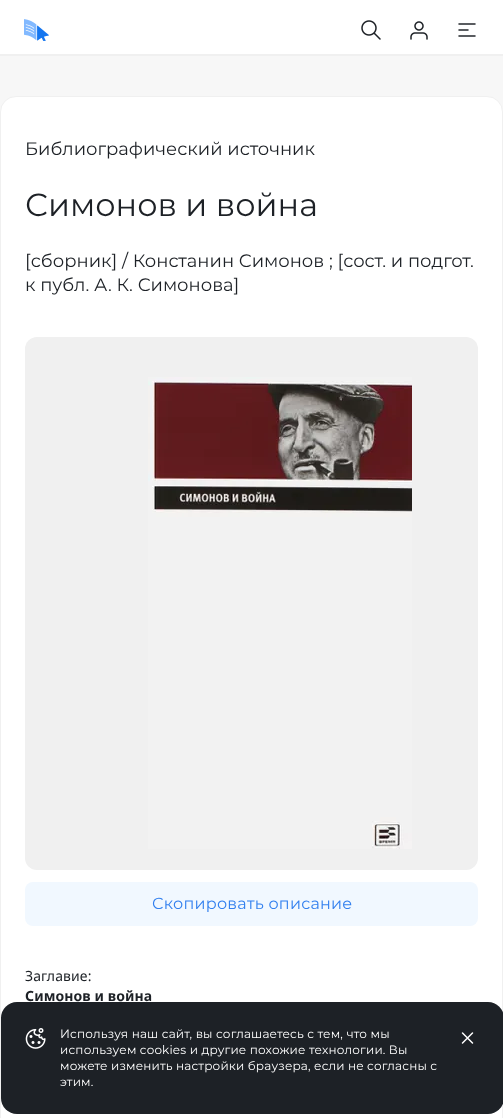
<svg xmlns="http://www.w3.org/2000/svg" width="503" height="1118">
<style>
.a{font:18px Montserrat;fill:#1d2126}
.b{font:32px Montserrat;fill:#1d2126}
.c{font:16px Montserrat;letter-spacing:0.25px;fill:#3380ef}
.d{font:14px Noto Sans;letter-spacing:0.1px;fill:#1d2126}
.e{font:bold 14px Noto Sans;letter-spacing:0.1px;fill:#1d2126}
.f{font:12px Montserrat;letter-spacing:0.18px;fill:#fff}
</style>
<rect width="100%" height="100%" fill="#f7f7f7"/>
<path fill="#fff" d="M0 0h503v54H0z"/>
<path fill="#f0f0f0" d="M0 54h503v2H0z"/>
<image href="1.png" x="24" y="19" width="25" height="22"/>
<image href="2.png" x="361" y="20" width="20" height="20"/>
<image href="3.png" x="410" y="21" width="18" height="19"/>
<image href="4.png" x="458" y="23" width="18" height="14"/>
<rect fill="#fff" stroke="#f0f0f0" x="0.5" y="96.5" width="502" height="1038" rx="15.5"/>
<rect fill="#f0f0f0" x="25" y="337" width="453" height="533" rx="12"/>
<image href="5.png" x="148" y="377" width="264" height="472"/>
<rect fill="#f1f8ff" x="25" y="882" width="453" height="44" rx="8"/>
<rect fill="#1d2126" x="1" y="1002" width="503" height="112" rx="16"/>
<image href="6.png" x="25" y="1028" width="21" height="21"/>
<path fill="none" stroke="#fff" stroke-width="1.5" stroke-linecap="round" stroke-linejoin="round" d="M472.5 1043l-10-10m10 0l-10 10"/>
<text class="a" x="25" y="155">Библиографический источник</text>
<text class="b" x="25" y="216">Симонов и война</text>
<text class="a" x="25" y="267">[сборник] / Констанин Симонов ; [сост. и подгот.</text>
<text class="a" x="25" y="291">к публ. А. К. Симонова]</text>
<text class="c" x="152" y="909">Скопировать описание</text>
<text class="d" x="25" y="981">Заглавие:</text>
<text class="e" x="25" y="1001">Симонов и война</text>
<text class="f" x="60" y="1038">Используя наш сайт, вы соглашаетесь с тем, что мы</text>
<text class="f" x="60" y="1054">используем cookies и другие похожие технологии. Вы</text>
<text class="f" x="60" y="1070">можете изменить настройки браузера, если не согласны с</text>
<text class="f" x="60" y="1086">этим.</text>
</svg>
